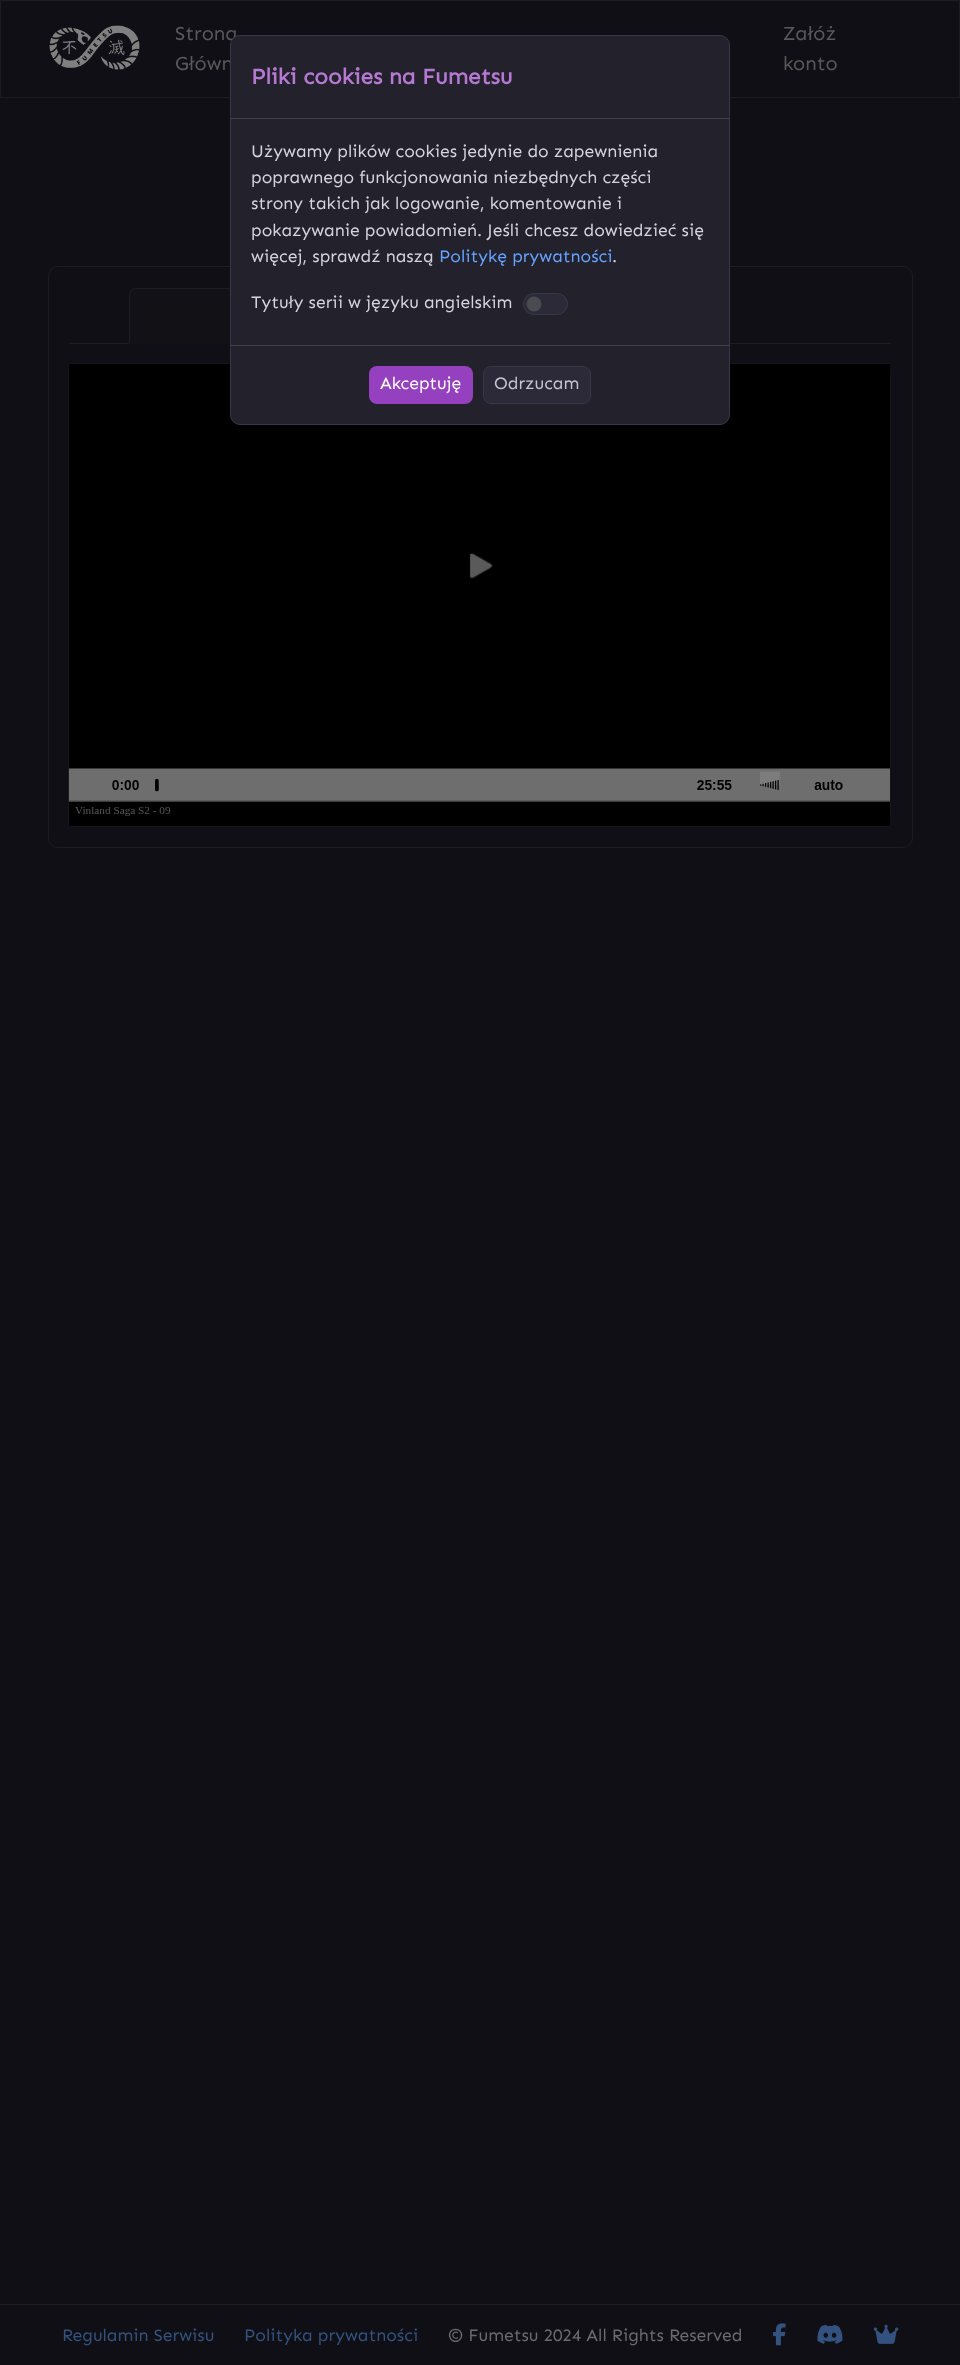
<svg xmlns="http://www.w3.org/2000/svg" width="960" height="2365">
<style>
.a{font:20px Sen;fill:#59595b}
.b{font:bold 22.5px Sen;fill:#b579d2}
.c{font:17.5px Sen;fill:#d5d3de}
.d{font:17.5px Sen;fill:#66a3ff}
.e{font:17.5px Sen;fill:#fff}
.f{font:17.5px Sen;fill:#c7c4d4}
.g{font:17.5px Sen;fill:#335280}
.h{font:17.5px Sen;fill:#6b6a6f}
</style>
<rect width="100%" height="100%" fill="#100f15"/>
<path fill="none" stroke="#1d1b25" d="M0.5 0.5h959v97H0.5z"/>
<image href="1.png" x="49" y="25" width="91" height="45"/>
<rect fill="none" stroke="#1d1b25" x="48.5" y="266.5" width="864" height="581" rx="9.5"/>
<path fill="#1d1b25" d="M69 343h822v1H69z"/>
<path fill="#111116" d="M137 288h325c4.5 0 8 3.5 8 8v48h-341v-48c0-4.5 3.5-8 8-8z"/>
<path fill="#1d1b25" d="M136 288c-2 0-4 1-5 2l1 1c1-1 3-2 4-2h327l4 2l1-1c-2-1-4-2-6-2z"/>
<path fill="#1d1b25" d="M131 290c-1 1-2 3-2 5v49l1-2v-47c0-2 1-3 2-4z"/>
<rect fill="#141319" x="69" y="364" width="822" height="462" rx="10"/>
<image href="2.png" x="68" y="363" width="822" height="464"/>
<path fill="#1d1b25" d="M0 2304h960v1H0z"/>
<image href="3.png" x="773" y="2323" width="13" height="23"/>
<image href="4.png" x="817" y="2324" width="26" height="20"/>
<image href="5.png" x="873" y="2324" width="26" height="20"/>
<text class="a" x="175" y="40">Strona</text>
<text class="a" x="175" y="70">Główn</text>
<text class="a" x="783" y="40">Załóż</text>
<text class="a" x="783" y="70">konto</text>
<rect fill="#22212c" stroke="#393649" x="230.5" y="35.5" width="499" height="389" rx="9.5"/>
<path fill="#43424c" d="M231 118h498v1H231z"/>
<text class="b" x="251" y="84">Pliki cookies na Fumetsu</text>
<text class="c" x="251" y="157">Używamy plików cookies jedynie do zapewnienia</text>
<text class="c" x="251" y="183">poprawnego funkcjonowania niezbędnych części</text>
<text class="c" x="251" y="209">strony takich jak logowanie, komentowanie i</text>
<text class="c" x="251" y="236">pokazywanie powiadomień. Jeśli chcesz dowiedzieć się</text>
<text class="c" x="251" y="262">więcej, sprawdź naszą</text>
<text class="d" x="439" y="262">Politykę prywatności</text>
<text class="c" x="612" y="262">.</text>
<text class="c" x="251" y="308">Tytuły serii w języku angielskim</text>
<rect fill="#2c2938" x="523" y="293" width="45" height="22" rx="11"/>
<circle fill="#494b50" cx="534" cy="304" r="7.5"/>
<rect fill="none" stroke="#393649" x="523.5" y="293.5" width="44" height="21" rx="10.5"/>
<path fill="#43424c" d="M231 345h498v1H231z"/>
<rect fill="#9540bf" x="369" y="366" width="104" height="38" rx="8"/>
<text class="e" x="380" y="389">Akceptuję</text>
<rect fill="#2c2938" stroke="#393649" x="483.5" y="366.5" width="107" height="37" rx="7.5"/>
<text class="f" x="494" y="389">Odrzucam</text>
<text class="g" x="62" y="2341">Regulamin Serwisu</text>
<text class="g" x="244" y="2341">Polityka prywatności</text>
<text class="h" x="448" y="2341">© Fumetsu 2024 All Rights Reserved</text>
</svg>
